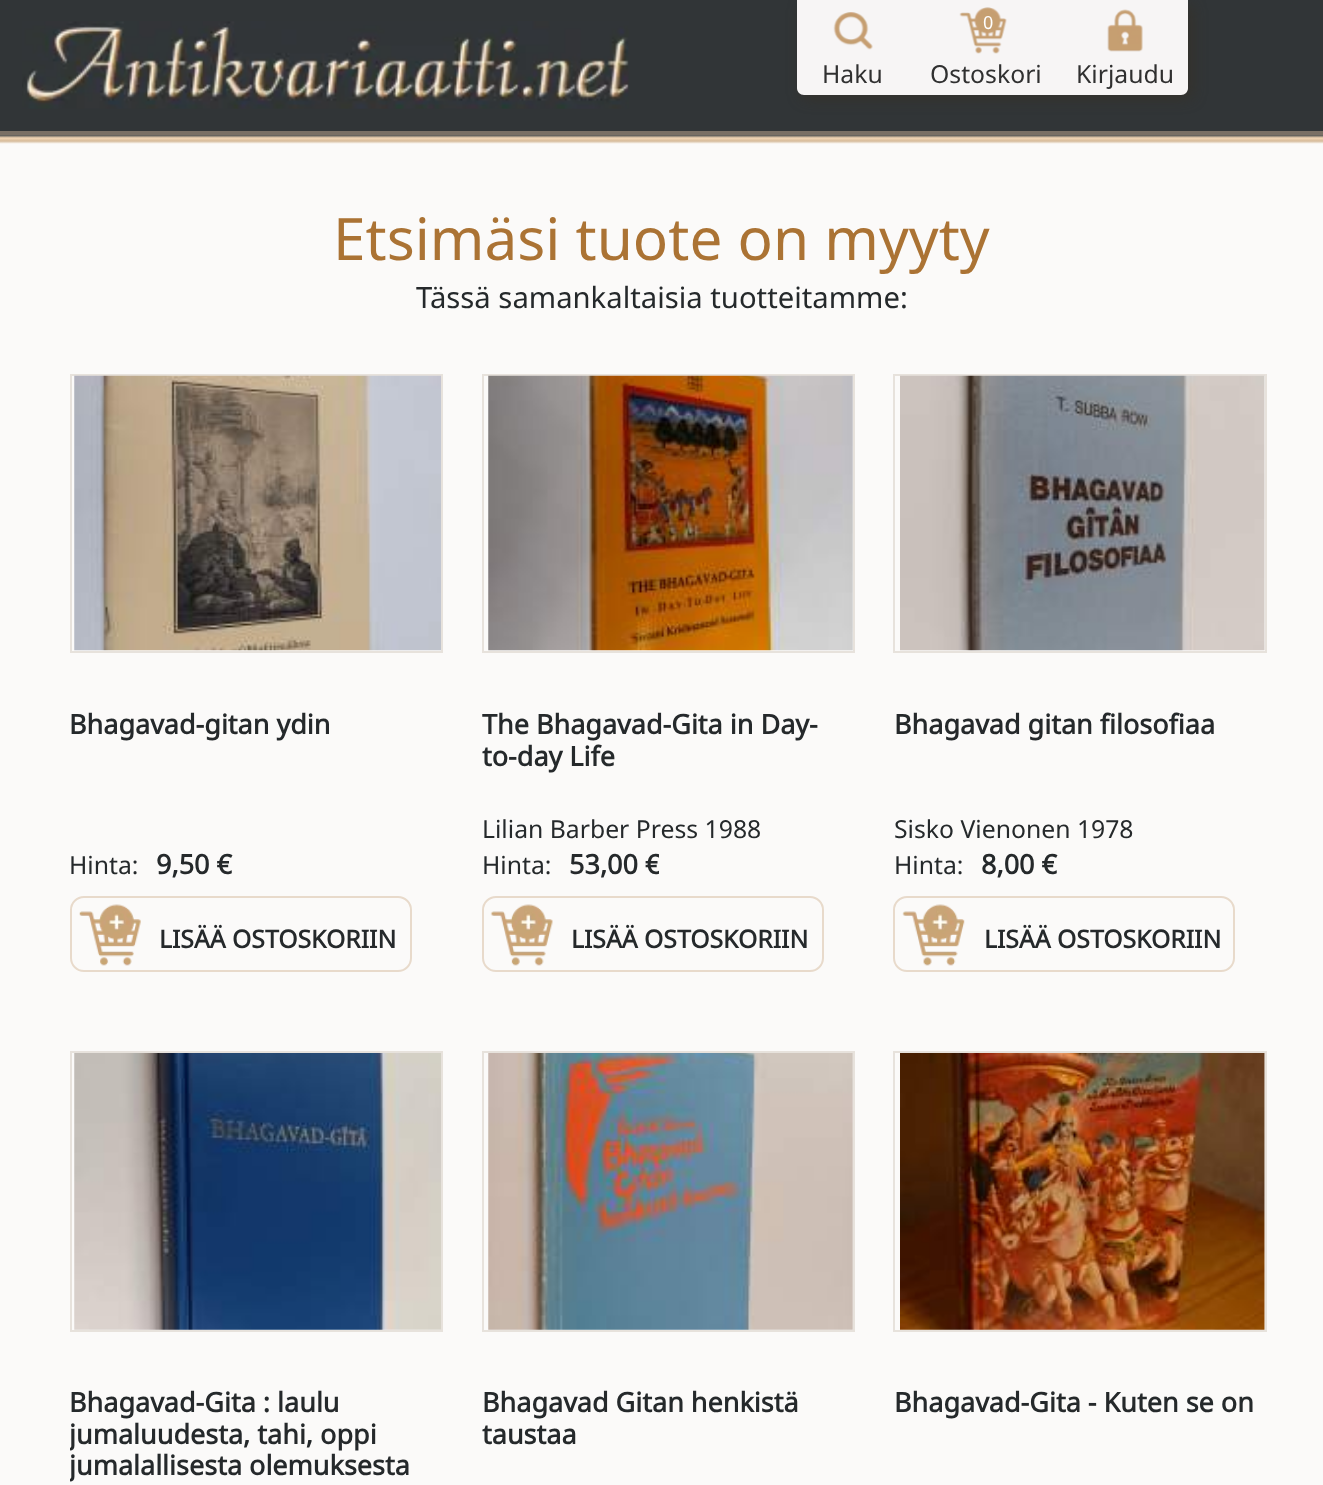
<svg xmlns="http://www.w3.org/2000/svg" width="1323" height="1485">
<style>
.a{font:24.75px Noto Sans;fill:#303030}
.b{font:18px Noto Sans;fill:#fff}
.c{font:58.5px Noto Sans;fill:#ab7334}
.d{font:29.25px Noto Sans;fill:#25292b}
.e{font:bold 27px Noto Sans;fill:#25292b}
.f{font:24.75px Noto Sans;fill:#25292b}
.g{font:bold 24.75px Noto Sans;fill:#25292b}
</style>
<defs>
<linearGradient id="g1" gradientUnits="userSpaceOnUse" x1="662" y1="135" x2="662" y2="144"><stop offset="0" stop-color="#4c4e4e"/><stop offset="0.33" stop-color="#f4d7b5"/><stop offset="0.67" stop-color="#d5ba9a"/><stop offset="1" stop-color="#fff"/></linearGradient>
<clipPath id="clip1"><path d="M482 709h360v94H482z"/></clipPath>
<clipPath id="clip2"><path d="M569 844h90v40H569z"/></clipPath>
<clipPath id="clip3"><path d="M70 1388h360v95H70z"/></clipPath>
</defs>
<rect width="100%" height="100%" fill="#fbfaf9"/>
<path fill="#313537" d="M0 0h1323v131H0z"/>
<path fill="#7a7065" d="M0 131h1323v4H0z"/>
<image href="1.png" x="22" y="21" width="607" height="88"/>
<path fill="url(#g1)" d="M0 135h1323v9H0z"/>
<rect fill="#382f218a" filter="blur(7px)" x="801" y="5" width="392" height="94" rx="7"/>
<path fill="#f7f5f5" d="M797 0h391v88c0 4-3 7-7 7h-377c-4 0-7-3-7-7z"/>
<image href="2.png" x="833" y="12" width="40" height="38"/>
<image href="3.png" x="959" y="7" width="48" height="47"/>
<image href="4.png" x="1107" y="9" width="36" height="43"/>
<path fill="none" stroke="#e7e2dc" stroke-width="2" d="M71 375h371v277H71z"/>
<image href="5.png" x="74" y="375" width="367" height="276"/>
<rect fill="none" stroke="#e8dacb" stroke-width="2" x="71" y="897" width="340" height="74" rx="13"/>
<image href="6.png" x="79" y="904" width="62" height="62"/>
<path fill="none" stroke="#e7e2dc" stroke-width="2" d="M483 375h371v277H483z"/>
<image href="7.png" x="488" y="375" width="365" height="276"/>
<rect fill="none" stroke="#e8dacb" stroke-width="2" x="483" y="897" width="340" height="74" rx="13"/>
<image href="8.png" x="490" y="904" width="63" height="62"/>
<path fill="none" stroke="#e7e2dc" stroke-width="2" d="M894 375h372v277H894z"/>
<image href="9.png" x="900" y="375" width="365" height="276"/>
<rect fill="none" stroke="#e8dacb" stroke-width="2" x="894" y="897" width="340" height="74" rx="13"/>
<image href="10.png" x="902" y="904" width="63" height="62"/>
<path fill="none" stroke="#e7e2dc" stroke-width="2" d="M71 1052h371v279H71z"/>
<image href="11.png" x="74" y="1053" width="367" height="277"/>
<path fill="none" stroke="#e7e2dc" stroke-width="2" d="M483 1052h371v279H483z"/>
<image href="12.png" x="488" y="1053" width="365" height="277"/>
<path fill="none" stroke="#e7e2dc" stroke-width="2" d="M894 1052h372v279H894z"/>
<image href="13.png" x="900" y="1053" width="365" height="277"/>
<text class="a" x="822" y="83">Haku</text>
<text class="b" x="983" y="29">0</text>
<text class="a" x="930" y="83">Ostoskori</text>
<text class="a" x="1076" y="83">Kirjaudu</text>
<text class="c" x="333" y="260">Etsimäsi tuote on myyty</text>
<text class="d" x="416" y="308">Tässä samankaltaisia tuotteitamme:</text>
<text class="e" x="69" y="734">Bhagavad-gitan ydin</text>
<text class="f" x="69" y="874">Hinta:</text>
<text class="e" x="156" y="874">9,50 €</text>
<text class="g" x="159" y="948">LISÄÄ OSTOSKORIIN</text>
<g clip-path="url(#clip1)">
<text class="e" x="482" y="734">The Bhagavad-Gita in Day-</text>
</g>
<text class="e" x="482" y="766">to-day Life</text>
<text class="f" x="482" y="838">Lilian Barber Press 1988</text>
<text class="f" x="482" y="874">Hinta:</text>
<g clip-path="url(#clip2)">
<text class="e" x="569" y="874">53,00 €</text>
</g>
<text class="g" x="571" y="948">LISÄÄ OSTOSKORIIN</text>
<text class="e" x="894" y="734">Bhagavad gitan filosofiaa</text>
<text class="f" x="894" y="838">Sisko Vienonen 1978</text>
<text class="f" x="894" y="874">Hinta:</text>
<text class="e" x="981" y="874">8,00 €</text>
<text class="g" x="984" y="948">LISÄÄ OSTOSKORIIN</text>
<text class="e" x="69" y="1412">Bhagavad-Gita : laulu</text>
<g clip-path="url(#clip3)">
<text class="e" x="69" y="1444">jumaluudesta, tahi, oppi</text>
<text class="e" x="69" y="1475">jumalallisesta olemuksesta</text>
</g>
<text class="e" x="482" y="1412">Bhagavad Gitan henkistä</text>
<text class="e" x="482" y="1444">taustaa</text>
<text class="e" x="894" y="1412">Bhagavad-Gita - Kuten se on</text>
</svg>
